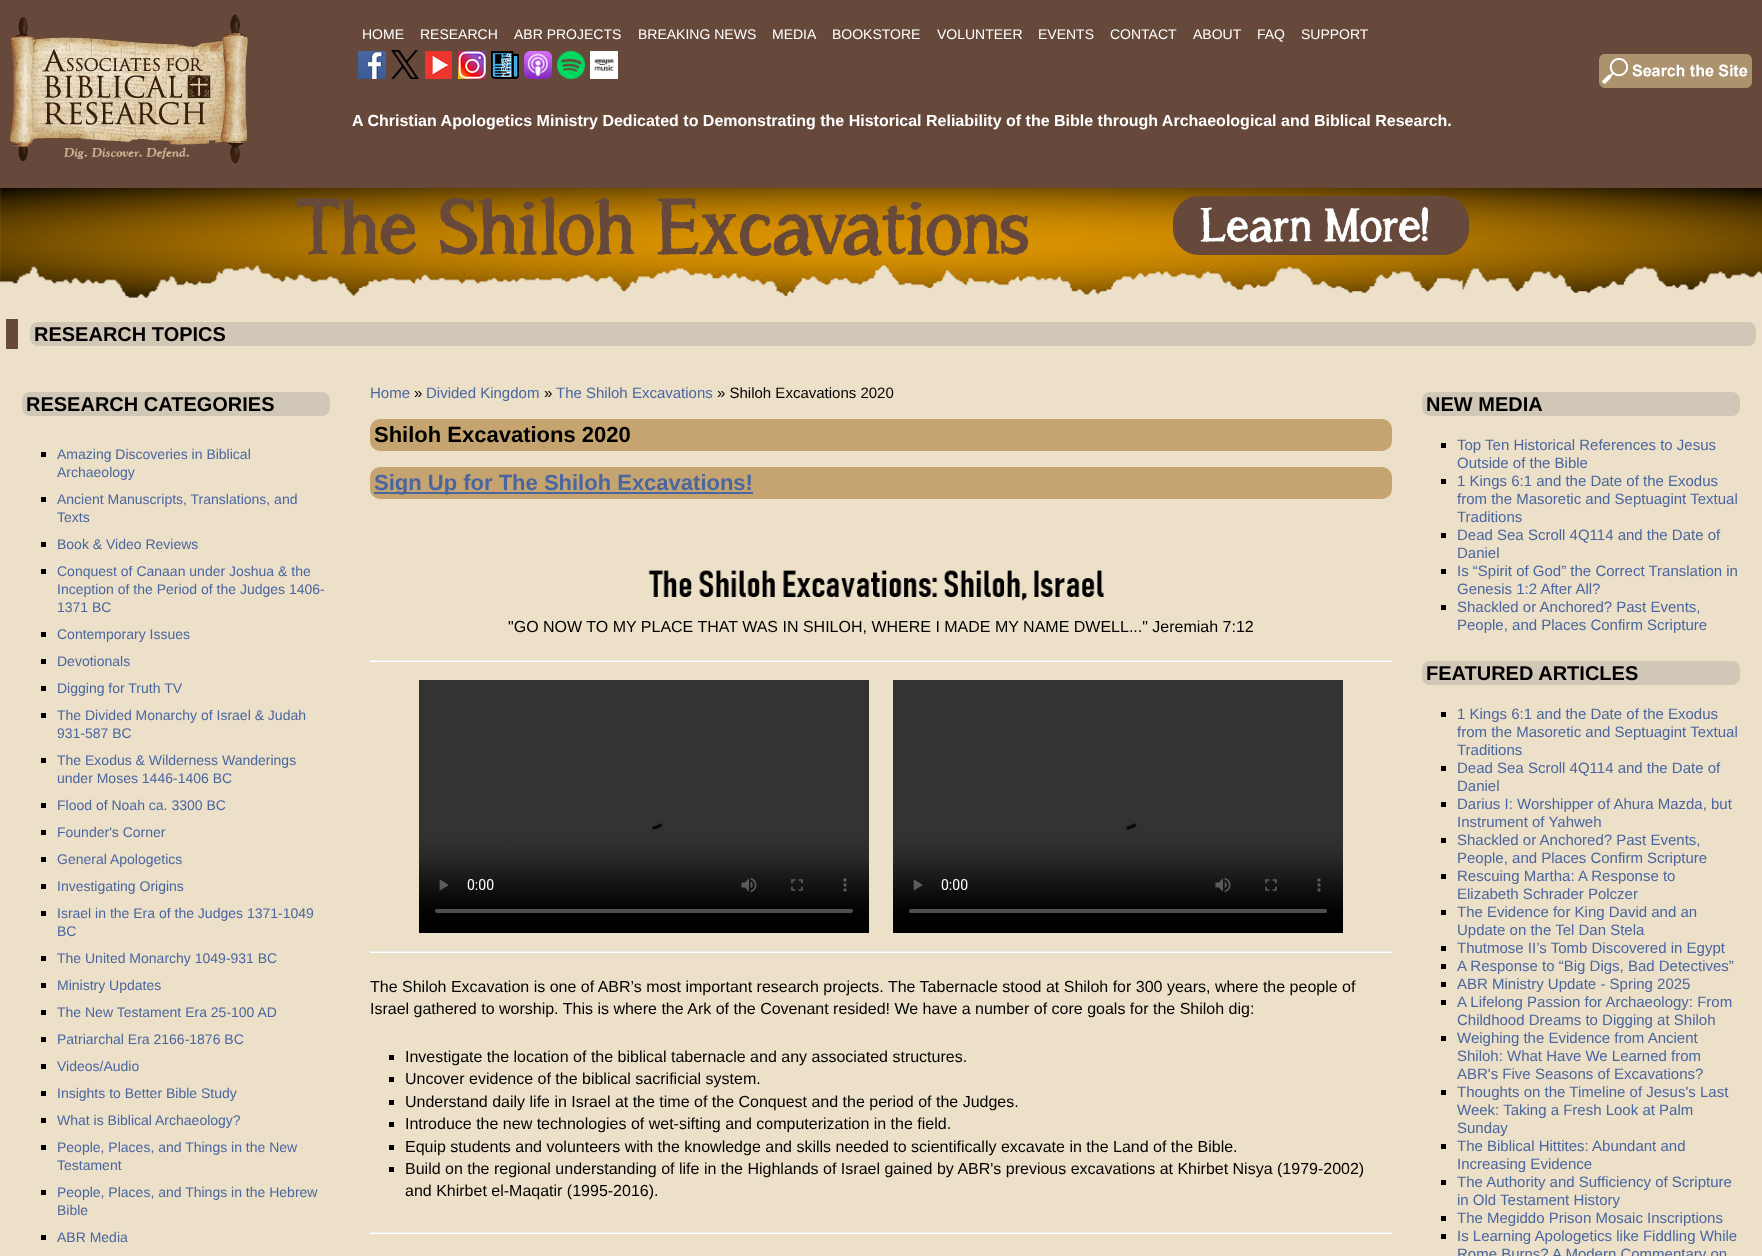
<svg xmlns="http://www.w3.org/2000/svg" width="1762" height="1256">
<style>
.a{font:14px Liberation Sans;fill:#fff}
.b{font:bold 16px Liberation Sans;fill:#fff}
.c{font:bold 20px Liberation Sans;fill:#000}
.d{font:14px Liberation Sans;fill:#4a66a0}
.e{font:15px Liberation Sans;fill:#4a66a0}
.f{font:15px Liberation Sans;fill:#000}
.g{font:bold 22px Liberation Sans;fill:#000}
.h{font:bold 22px Liberation Sans;fill:#4a66a0}
.i{font:16px Liberation Sans;fill:#000}
</style>
<rect width="100%" height="100%" fill="#66493b"/>
<image href="1.png" x="10" y="14" width="238" height="150"/>
<image href="2.png" x="358" y="51" width="28" height="28"/>
<image href="3.png" x="391" y="50" width="28" height="29"/>
<image href="4.png" x="425" y="51" width="27" height="28"/>
<image href="5.png" x="458" y="51" width="28" height="28"/>
<image href="6.png" x="491" y="51" width="28" height="28"/>
<image href="7.png" x="524" y="51" width="28" height="28"/>
<image href="8.png" x="557" y="51" width="28" height="28"/>
<image href="9.png" x="590" y="51" width="28" height="28"/>
<image href="10.png" x="1599" y="54" width="153" height="34"/>
<path fill="#ece0c8" d="M0 188h1762v1068H0z"/>
<image href="11.png" x="0" y="188" width="1762" height="110"/>
<image href="12.png" x="296" y="196" width="1173" height="60"/>
<path fill="#66493b" d="M6 319h12v30H6z"/>
<rect fill="#d1c7b6" x="30" y="322" width="1726" height="24" rx="8"/>
<rect fill="#d1c7b6" x="22" y="392" width="308" height="24" rx="8"/>
<path fill="#000" d="M41 452h5v5H41z"/>
<path fill="#000" d="M41 497h5v5H41z"/>
<path fill="#000" d="M41 542h5v5H41z"/>
<path fill="#000" d="M41 569h5v5H41z"/>
<path fill="#000" d="M41 632h5v5H41z"/>
<path fill="#000" d="M41 659h5v5H41z"/>
<path fill="#000" d="M41 686h5v5H41z"/>
<path fill="#000" d="M41 713h5v5H41z"/>
<path fill="#000" d="M41 758h5v5H41z"/>
<path fill="#000" d="M41 803h5v5H41z"/>
<path fill="#000" d="M41 830h5v5H41z"/>
<path fill="#000" d="M41 857h5v5H41z"/>
<path fill="#000" d="M41 884h5v5H41z"/>
<path fill="#000" d="M41 911h5v5H41z"/>
<path fill="#000" d="M41 956h5v5H41z"/>
<path fill="#000" d="M41 983h5v5H41z"/>
<path fill="#000" d="M41 1010h5v5H41z"/>
<path fill="#000" d="M41 1037h5v5H41z"/>
<path fill="#000" d="M41 1064h5v5H41z"/>
<path fill="#000" d="M41 1091h5v5H41z"/>
<path fill="#000" d="M41 1118h5v5H41z"/>
<path fill="#000" d="M41 1145h5v5H41z"/>
<path fill="#000" d="M41 1190h5v5H41z"/>
<path fill="#000" d="M41 1235h5v5H41z"/>
<rect fill="#c5a470" x="370" y="419" width="1022" height="32" rx="10"/>
<rect fill="#c5a470" x="370" y="467" width="1022" height="32" rx="10"/>
<path fill="#4a66a0" d="M374 492h379v2H374z"/>
<image href="13.png" x="648" y="570" width="456" height="31"/>
<path fill="#eee" d="M370 660h1022v1H370z"/>
<path fill="#fff" d="M370 661h1022v1H370z"/>
<image href="14.png" x="419" y="680" width="450" height="253"/>
<image href="15.png" x="893" y="680" width="450" height="253"/>
<path fill="#eee" d="M370 951h1022v1H370z"/>
<path fill="#fff" d="M370 952h1022v1H370z"/>
<path fill="#000" d="M389 1055h5v5H389z"/>
<path fill="#000" d="M389 1077h5v5H389z"/>
<path fill="#000" d="M389 1100h5v5H389z"/>
<path fill="#000" d="M389 1122h5v5H389z"/>
<path fill="#000" d="M389 1145h5v5H389z"/>
<path fill="#000" d="M389 1167h5v5H389z"/>
<path fill="#eee" d="M370 1232h1022v1H370z"/>
<path fill="#fff" d="M370 1233h1022v1H370z"/>
<rect fill="#d1c7b6" x="1422" y="392" width="318" height="24" rx="8"/>
<path fill="#000" d="M1441 443h5v5H1441z"/>
<path fill="#000" d="M1441 479h5v5H1441z"/>
<path fill="#000" d="M1441 533h5v5H1441z"/>
<path fill="#000" d="M1441 569h5v5H1441z"/>
<path fill="#000" d="M1441 605h5v5H1441z"/>
<rect fill="#d1c7b6" x="1422" y="661" width="318" height="24" rx="8"/>
<path fill="#000" d="M1441 712h5v5H1441z"/>
<path fill="#000" d="M1441 766h5v5H1441z"/>
<path fill="#000" d="M1441 802h5v5H1441z"/>
<path fill="#000" d="M1441 838h5v5H1441z"/>
<path fill="#000" d="M1441 874h5v5H1441z"/>
<path fill="#000" d="M1441 910h5v5H1441z"/>
<path fill="#000" d="M1441 946h5v5H1441z"/>
<path fill="#000" d="M1441 964h5v5H1441z"/>
<path fill="#000" d="M1441 982h5v5H1441z"/>
<path fill="#000" d="M1441 1000h5v5H1441z"/>
<path fill="#000" d="M1441 1036h5v5H1441z"/>
<path fill="#000" d="M1441 1090h5v5H1441z"/>
<path fill="#000" d="M1441 1144h5v5H1441z"/>
<path fill="#000" d="M1441 1180h5v5H1441z"/>
<path fill="#000" d="M1441 1216h5v5H1441z"/>
<path fill="#000" d="M1441 1234h5v5H1441z"/>
<text class="a" x="362" y="39">HOME</text>
<text class="a" x="420" y="39">RESEARCH</text>
<text class="a" x="514" y="39">ABR PROJECTS</text>
<text class="a" x="638" y="39">BREAKING NEWS</text>
<text class="a" x="772" y="39">MEDIA</text>
<text class="a" x="832" y="39">BOOKSTORE</text>
<text class="a" x="937" y="39">VOLUNTEER</text>
<text class="a" x="1038" y="39">EVENTS</text>
<text class="a" x="1110" y="39">CONTACT</text>
<text class="a" x="1193" y="39">ABOUT</text>
<text class="a" x="1257" y="39">FAQ</text>
<text class="a" x="1301" y="39">SUPPORT</text>
<text class="b" x="352" y="126">A Christian Apologetics Ministry Dedicated to Demonstrating the Historical Reliability of the Bible through Archaeological and Biblical Research.</text>
<text class="c" x="34" y="341">RESEARCH TOPICS</text>
<text class="c" x="26" y="411">RESEARCH CATEGORIES</text>
<text class="d" x="57" y="459">Amazing Discoveries in Biblical</text>
<text class="d" x="57" y="477">Archaeology</text>
<text class="d" x="57" y="504">Ancient Manuscripts, Translations, and</text>
<text class="d" x="57" y="522">Texts</text>
<text class="d" x="57" y="549">Book &amp; Video Reviews</text>
<text class="d" x="57" y="576">Conquest of Canaan under Joshua &amp; the</text>
<text class="d" x="57" y="594">Inception of the Period of the Judges 1406-</text>
<text class="d" x="57" y="612">1371 BC</text>
<text class="d" x="57" y="639">Contemporary Issues</text>
<text class="d" x="57" y="666">Devotionals</text>
<text class="d" x="57" y="693">Digging for Truth TV</text>
<text class="d" x="57" y="720">The Divided Monarchy of Israel &amp; Judah</text>
<text class="d" x="57" y="738">931-587 BC</text>
<text class="d" x="57" y="765">The Exodus &amp; Wilderness Wanderings</text>
<text class="d" x="57" y="783">under Moses 1446-1406 BC</text>
<text class="d" x="57" y="810">Flood of Noah ca. 3300 BC</text>
<text class="d" x="57" y="837">Founder's Corner</text>
<text class="d" x="57" y="864">General Apologetics</text>
<text class="d" x="57" y="891">Investigating Origins</text>
<text class="d" x="57" y="918">Israel in the Era of the Judges 1371-1049</text>
<text class="d" x="57" y="936">BC</text>
<text class="d" x="57" y="963">The United Monarchy 1049-931 BC</text>
<text class="d" x="57" y="990">Ministry Updates</text>
<text class="d" x="57" y="1017">The New Testament Era 25-100 AD</text>
<text class="d" x="57" y="1044">Patriarchal Era 2166-1876 BC</text>
<text class="d" x="57" y="1071">Videos/Audio</text>
<text class="d" x="57" y="1098">Insights to Better Bible Study</text>
<text class="d" x="57" y="1125">What is Biblical Archaeology?</text>
<text class="d" x="57" y="1152">People, Places, and Things in the New</text>
<text class="d" x="57" y="1170">Testament</text>
<text class="d" x="57" y="1197">People, Places, and Things in the Hebrew</text>
<text class="d" x="57" y="1215">Bible</text>
<text class="d" x="57" y="1242">ABR Media</text>
<text class="e" x="370" y="398">Home</text>
<text class="f" x="414" y="398">»</text>
<text class="e" x="426" y="398">Divided Kingdom</text>
<text class="f" x="544" y="398">»</text>
<text class="e" x="556" y="398">The Shiloh Excavations</text>
<text class="f" x="717" y="398">» Shiloh Excavations 2020</text>
<text class="g" x="374" y="442">Shiloh Excavations 2020</text>
<text class="h" x="374" y="490">Sign Up for The Shiloh Excavations!</text>
<text class="i" x="508" y="632">"GO NOW TO MY PLACE THAT WAS IN SHILOH, WHERE I MADE MY NAME DWELL..." Jeremiah 7:12</text>
<text class="i" x="370" y="992">The Shiloh Excavation is one of ABR’s most important research projects. The Tabernacle stood at Shiloh for 300 years, where the people of</text>
<text class="i" x="370" y="1014">Israel gathered to worship. This is where the Ark of the Covenant resided! We have a number of core goals for the Shiloh dig:</text>
<text class="i" x="405" y="1062">Investigate the location of the biblical tabernacle and any associated structures.</text>
<text class="i" x="405" y="1084">Uncover evidence of the biblical sacrificial system.</text>
<text class="i" x="405" y="1107">Understand daily life in Israel at the time of the Conquest and the period of the Judges.</text>
<text class="i" x="405" y="1129">Introduce the new technologies of wet-sifting and computerization in the field.</text>
<text class="i" x="405" y="1152">Equip students and volunteers with the knowledge and skills needed to scientifically excavate in the Land of the Bible.</text>
<text class="i" x="405" y="1174">Build on the regional understanding of life in the Highlands of Israel gained by ABR's previous excavations at Khirbet Nisya (1979-2002)</text>
<text class="i" x="405" y="1196">and Khirbet el-Maqatir (1995-2016).</text>
<text class="c" x="1426" y="411">NEW MEDIA</text>
<text class="e" x="1457" y="450">Top Ten Historical References to Jesus</text>
<text class="e" x="1457" y="468">Outside of the Bible</text>
<text class="e" x="1457" y="486">1 Kings 6:1 and the Date of the Exodus</text>
<text class="e" x="1457" y="504">from the Masoretic and Septuagint Textual</text>
<text class="e" x="1457" y="522">Traditions</text>
<text class="e" x="1457" y="540">Dead Sea Scroll 4Q114 and the Date of</text>
<text class="e" x="1457" y="558">Daniel</text>
<text class="e" x="1457" y="576">Is “Spirit of God” the Correct Translation in</text>
<text class="e" x="1457" y="594">Genesis 1:2 After All?</text>
<text class="e" x="1457" y="612">Shackled or Anchored? Past Events,</text>
<text class="e" x="1457" y="630">People, and Places Confirm Scripture</text>
<text class="c" x="1426" y="680">FEATURED ARTICLES</text>
<text class="e" x="1457" y="719">1 Kings 6:1 and the Date of the Exodus</text>
<text class="e" x="1457" y="737">from the Masoretic and Septuagint Textual</text>
<text class="e" x="1457" y="755">Traditions</text>
<text class="e" x="1457" y="773">Dead Sea Scroll 4Q114 and the Date of</text>
<text class="e" x="1457" y="791">Daniel</text>
<text class="e" x="1457" y="809">Darius I: Worshipper of Ahura Mazda, but</text>
<text class="e" x="1457" y="827">Instrument of Yahweh</text>
<text class="e" x="1457" y="845">Shackled or Anchored? Past Events,</text>
<text class="e" x="1457" y="863">People, and Places Confirm Scripture</text>
<text class="e" x="1457" y="881">Rescuing Martha: A Response to</text>
<text class="e" x="1457" y="899">Elizabeth Schrader Polczer</text>
<text class="e" x="1457" y="917">The Evidence for King David and an</text>
<text class="e" x="1457" y="935">Update on the Tel Dan Stela</text>
<text class="e" x="1457" y="953">Thutmose II’s Tomb Discovered in Egypt</text>
<text class="e" x="1457" y="971">A Response to “Big Digs, Bad Detectives”</text>
<text class="e" x="1457" y="989">ABR Ministry Update - Spring 2025</text>
<text class="e" x="1457" y="1007">A Lifelong Passion for Archaeology: From</text>
<text class="e" x="1457" y="1025">Childhood Dreams to Digging at Shiloh</text>
<text class="e" x="1457" y="1043">Weighing the Evidence from Ancient</text>
<text class="e" x="1457" y="1061">Shiloh: What Have We Learned from</text>
<text class="e" x="1457" y="1079">ABR's Five Seasons of Excavations?</text>
<text class="e" x="1457" y="1097">Thoughts on the Timeline of Jesus's Last</text>
<text class="e" x="1457" y="1115">Week: Taking a Fresh Look at Palm</text>
<text class="e" x="1457" y="1133">Sunday</text>
<text class="e" x="1457" y="1151">The Biblical Hittites: Abundant and</text>
<text class="e" x="1457" y="1169">Increasing Evidence</text>
<text class="e" x="1457" y="1187">The Authority and Sufficiency of Scripture</text>
<text class="e" x="1457" y="1205">in Old Testament History</text>
<text class="e" x="1457" y="1223">The Megiddo Prison Mosaic Inscriptions</text>
<text class="e" x="1457" y="1241">Is Learning Apologetics like Fiddling While</text>
<text class="e" x="1457" y="1259">Rome Burns? A Modern Commentary on</text>
</svg>
